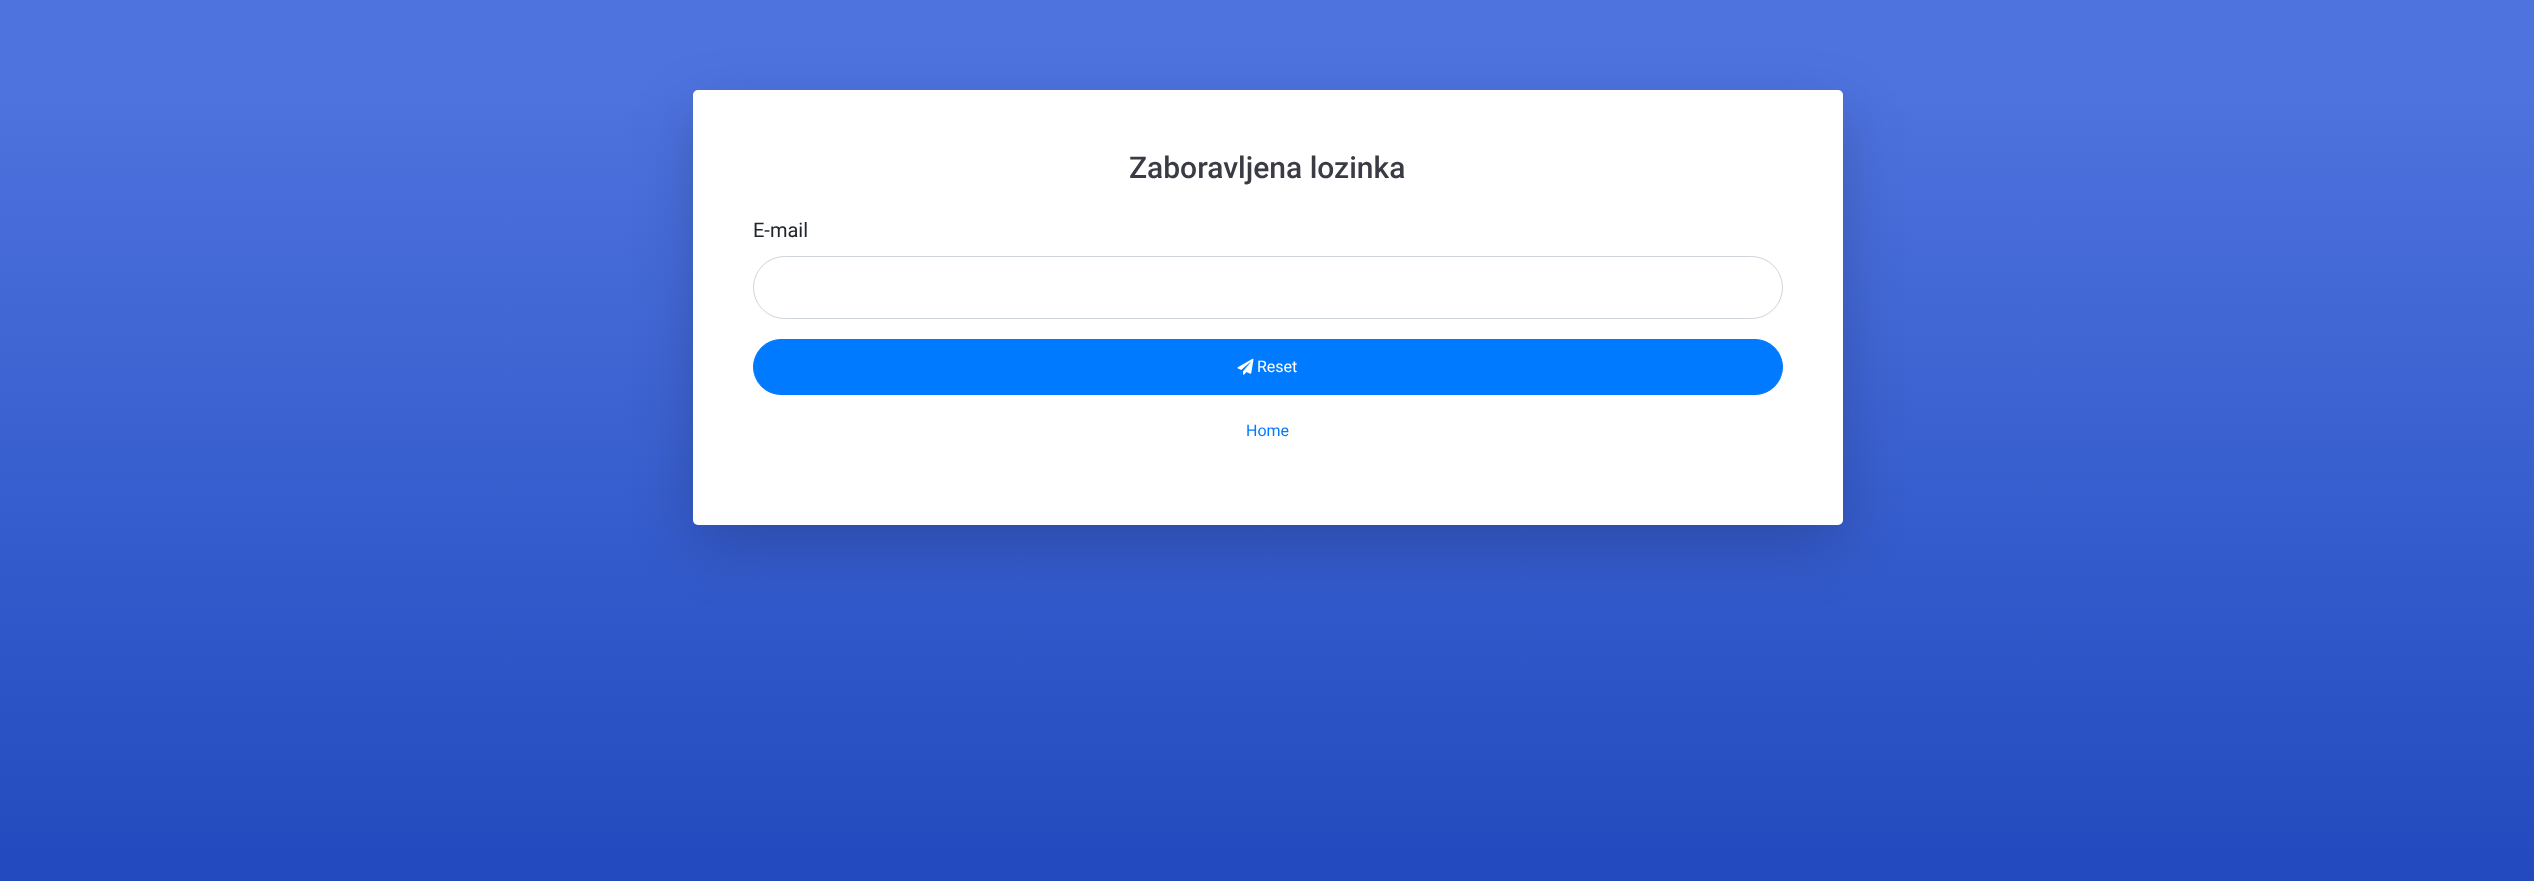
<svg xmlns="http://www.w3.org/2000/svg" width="2534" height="881">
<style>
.a{font:500 30px Roboto;fill:#3a3b45}
.b{font:20px Roboto;fill:#212529}
.c{font:16px Roboto;fill:#fff}
.d{font:16px Roboto;fill:#007bff}
</style>
<defs>
<linearGradient id="g1" gradientUnits="userSpaceOnUse" x1="1268" y1="0" x2="1268" y2="881"><stop offset="0.1" stop-color="#4e73df"/><stop offset="1" stop-color="#224abe"/></linearGradient>
</defs>
<rect width="100%" height="100%" fill="#fff"/>
<path fill="url(#g1)" d="M0 0h2534v881H0z"/>
<rect fill="#0000002e" filter="blur(30px)" x="693" y="110" width="1150" height="435" rx="5"/>
<rect fill="#fff" x="693" y="90" width="1150" height="435" rx="5"/>
<rect fill="none" stroke="#ced4da" x="753.5" y="256.5" width="1029" height="62" rx="31"/>
<rect fill="#007bff" stroke="#007bff" x="753.5" y="339.5" width="1029" height="55" rx="27.5"/>
<image href="1.png" x="1237" y="358" width="17" height="17"/>
<text class="a" x="1129" y="178">Zaboravljena lozinka</text>
<text class="b" x="753" y="237">E-mail</text>
<text class="c" x="1257" y="372">Reset</text>
<text class="d" x="1246" y="436">Home</text>
</svg>
